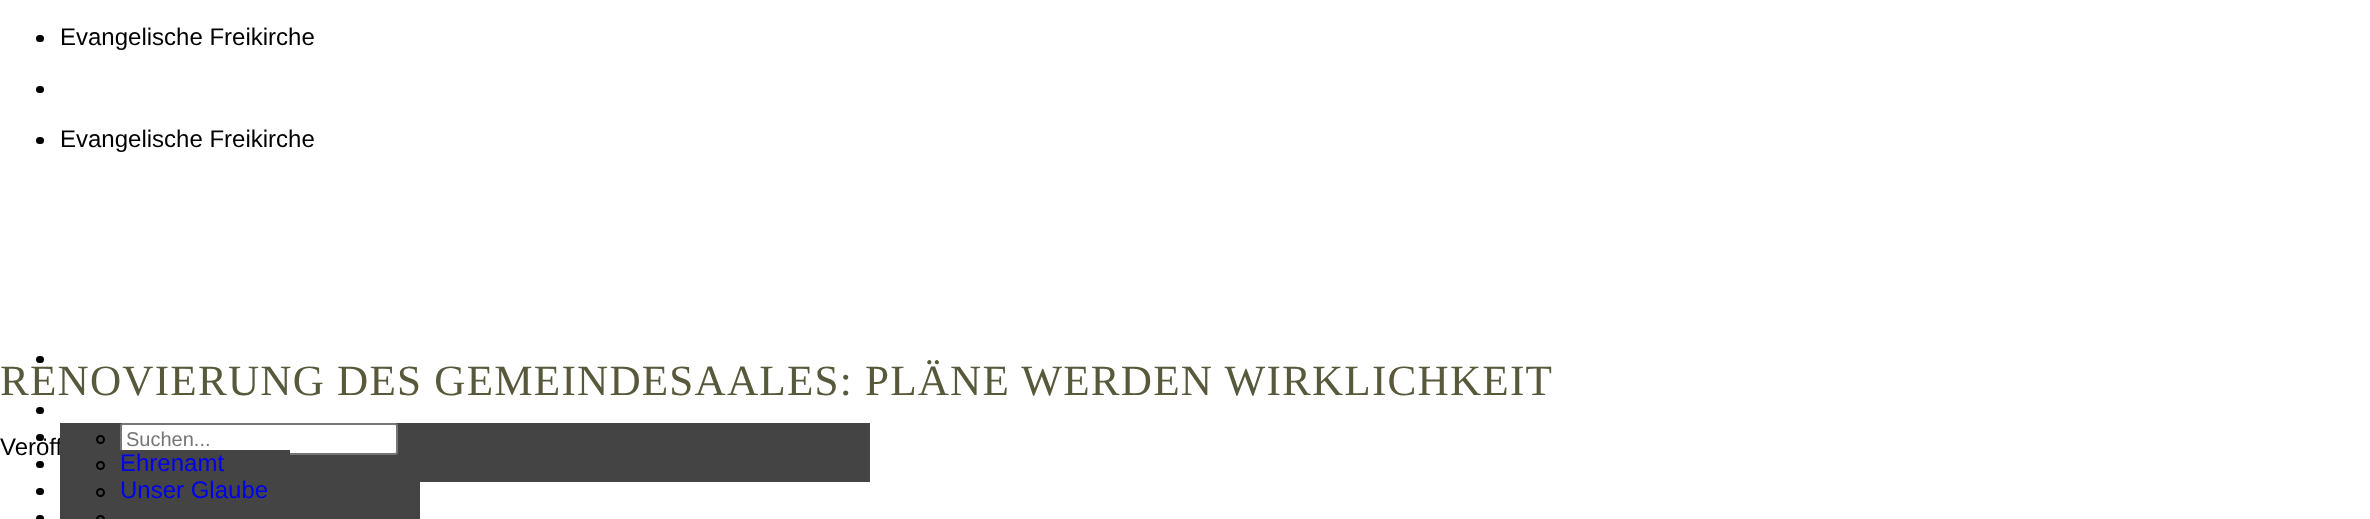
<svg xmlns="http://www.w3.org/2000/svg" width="2370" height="519">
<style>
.a{font:24px Liberation Sans;fill:#000}
.b{font:43.2px Liberation Serif;letter-spacing:1.2px;fill:#58583b}
.c{font:24px Liberation Sans;fill:#00e}
.d{font:20px Liberation Sans;fill:#757575}
</style>
<rect width="100%" height="100%" fill="#fff"/>
<rect fill="#000" x="36" y="35" width="8" height="7" rx="3.5"/>
<rect fill="#000" x="36" y="86" width="8" height="7" rx="3.5"/>
<rect fill="#000" x="36" y="137" width="8" height="7" rx="3.5"/>
<rect fill="#000" x="36" y="356" width="8" height="7" rx="3.5"/>
<rect fill="#000" x="36" y="407" width="8" height="7" rx="3.5"/>
<rect fill="#000" x="36" y="434" width="8" height="7" rx="3.5"/>
<rect fill="#000" x="36" y="488" width="8" height="7" rx="3.5"/>
<path fill="#444" d="M60 482h360v37H60z"/>
<circle fill="none" stroke="#000" stroke-width="2" cx="100.5" cy="519.5" r="3.5"/>
<rect fill="#000" x="36" y="461" width="8" height="7" rx="3.5"/>
<circle fill="none" stroke="#000" stroke-width="2" cx="100.5" cy="492.5" r="3.5"/>
<rect fill="#000" x="36" y="515" width="8" height="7" rx="3.5"/>
<text class="a" x="60" y="45">Evangelische Freikirche</text>
<text class="a" x="60" y="147">Evangelische Freikirche</text>
<text class="b" x="0" y="395">RENOVIERUNG DES GEMEINDESAALES: PLÄNE WERDEN WIRKLICHKEIT</text>
<text class="a" x="0" y="455">Veröff</text>
<path fill="#444" d="M60 423h810v59H60z"/>
<text class="c" x="120" y="498">Unser Glaube</text>
<rect fill="#fff" stroke="#767676" stroke-width="2" x="121" y="424" width="276" height="30" rx="2"/>
<path fill="#444" d="M120 450h170v5H120z"/>
<text class="c" x="120" y="471">Ehrenamt</text>
<circle fill="none" stroke="#000" stroke-width="2" cx="100.5" cy="465.5" r="3.5"/>
<text class="d" x="126" y="446">Suchen...</text>
<circle fill="none" stroke="#000" stroke-width="2" cx="100.5" cy="439.5" r="3.5"/>
</svg>
